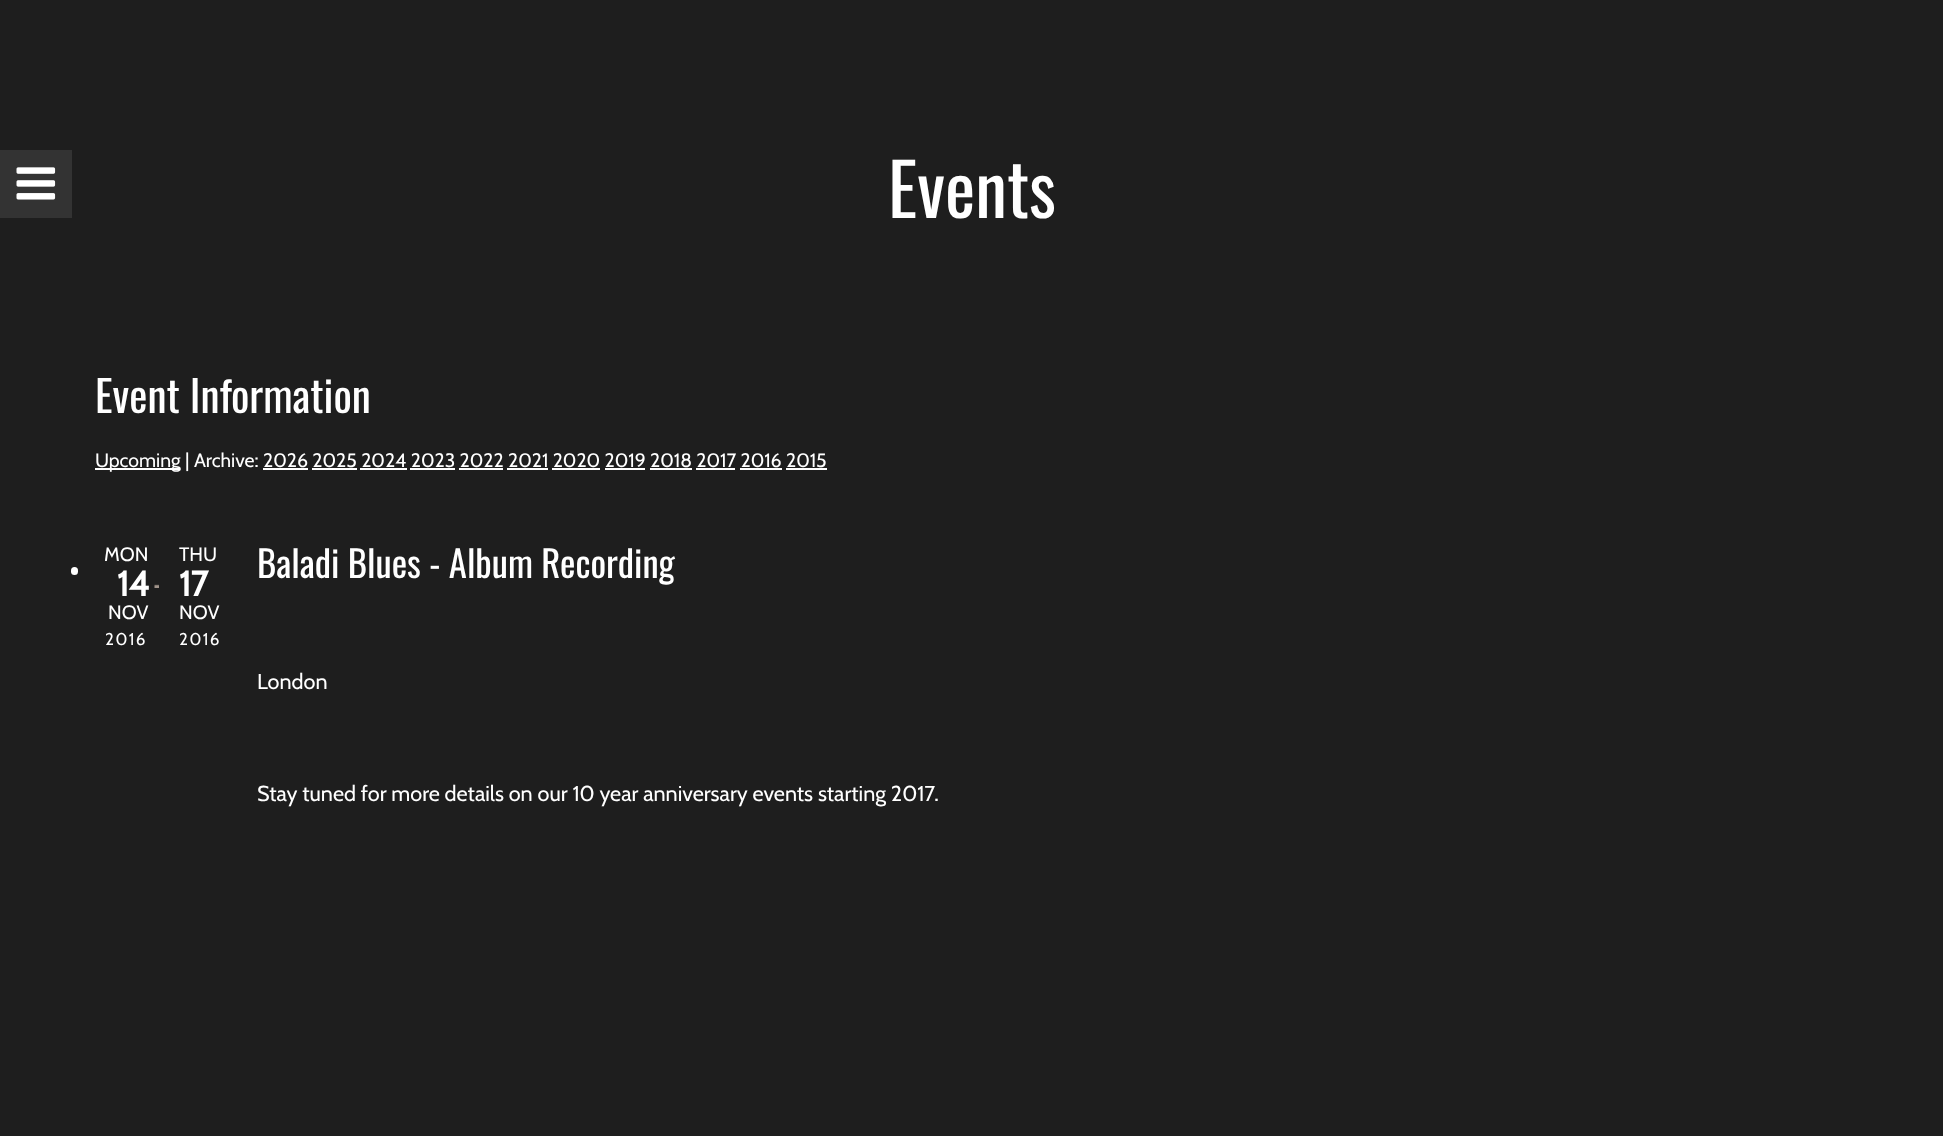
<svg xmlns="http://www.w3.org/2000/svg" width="1943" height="1136">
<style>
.a{font:72px Oswald;fill:#fff}
.b{font:43.25px Oswald;fill:#fff}
.c{font:19.45px Cabin;fill:#fff}
.d{font:bold 35px Cabin;fill:#fff}
.e{font:17px Cabin;letter-spacing:1.5px;fill:#fff}
.f{font:36.75px Oswald;fill:#fff}
.g{font:21.6px Cabin;fill:#fff}
</style>
<rect width="100%" height="100%" fill="#1e1e1e"/>
<path fill="#333" d="M0 150h72v68H0z"/>
<image href="1.png" x="16" y="167" width="40" height="33"/>
<path fill="#fff" d="M95 468h85v2H95z"/>
<path fill="#fff" d="M263 468h45v2H263z"/>
<path fill="#fff" d="M312 468h45v2H312z"/>
<path fill="#fff" d="M360 468h47v2H360z"/>
<path fill="#fff" d="M410 468h45v2H410z"/>
<path fill="#fff" d="M459 468h44v2H459z"/>
<path fill="#fff" d="M507 468h41v2H507z"/>
<path fill="#fff" d="M552 468h48v2H552z"/>
<path fill="#fff" d="M605 468h40v2H605z"/>
<path fill="#fff" d="M650 468h42v2H650z"/>
<path fill="#fff" d="M696 468h39v2H696z"/>
<path fill="#fff" d="M740 468h42v2H740z"/>
<path fill="#fff" d="M786 468h41v2H786z"/>
<rect fill="#fff" x="71" y="567" width="7" height="8" rx="3.5"/>
<image href="2.png" x="154" y="584" width="5" height="4"/>
<text class="a" x="888" y="218">Events</text>
<text class="b" x="95" y="413">Event Information</text>
<text class="c" x="95" y="467">Upcoming | Archive: 2026 2025 2024 2023 2022 2021 2020 2019 2018 2017 2016 2015</text>
<text class="c" x="104" y="561">MON</text>
<text class="d" x="117" y="596">14</text>
<text class="c" x="108" y="619">NOV</text>
<text class="e" x="105" y="645">2016</text>
<text class="c" x="179" y="561">THU</text>
<text class="d" x="179" y="596">17</text>
<text class="c" x="179" y="619">NOV</text>
<text class="e" x="179" y="645">2016</text>
<text class="f" x="257" y="578">Baladi Blues - Album Recording</text>
<text class="g" x="257" y="689">London</text>
<text class="g" x="257" y="801">Stay tuned for more details on our 10 year anniversary events starting 2017.</text>
</svg>
